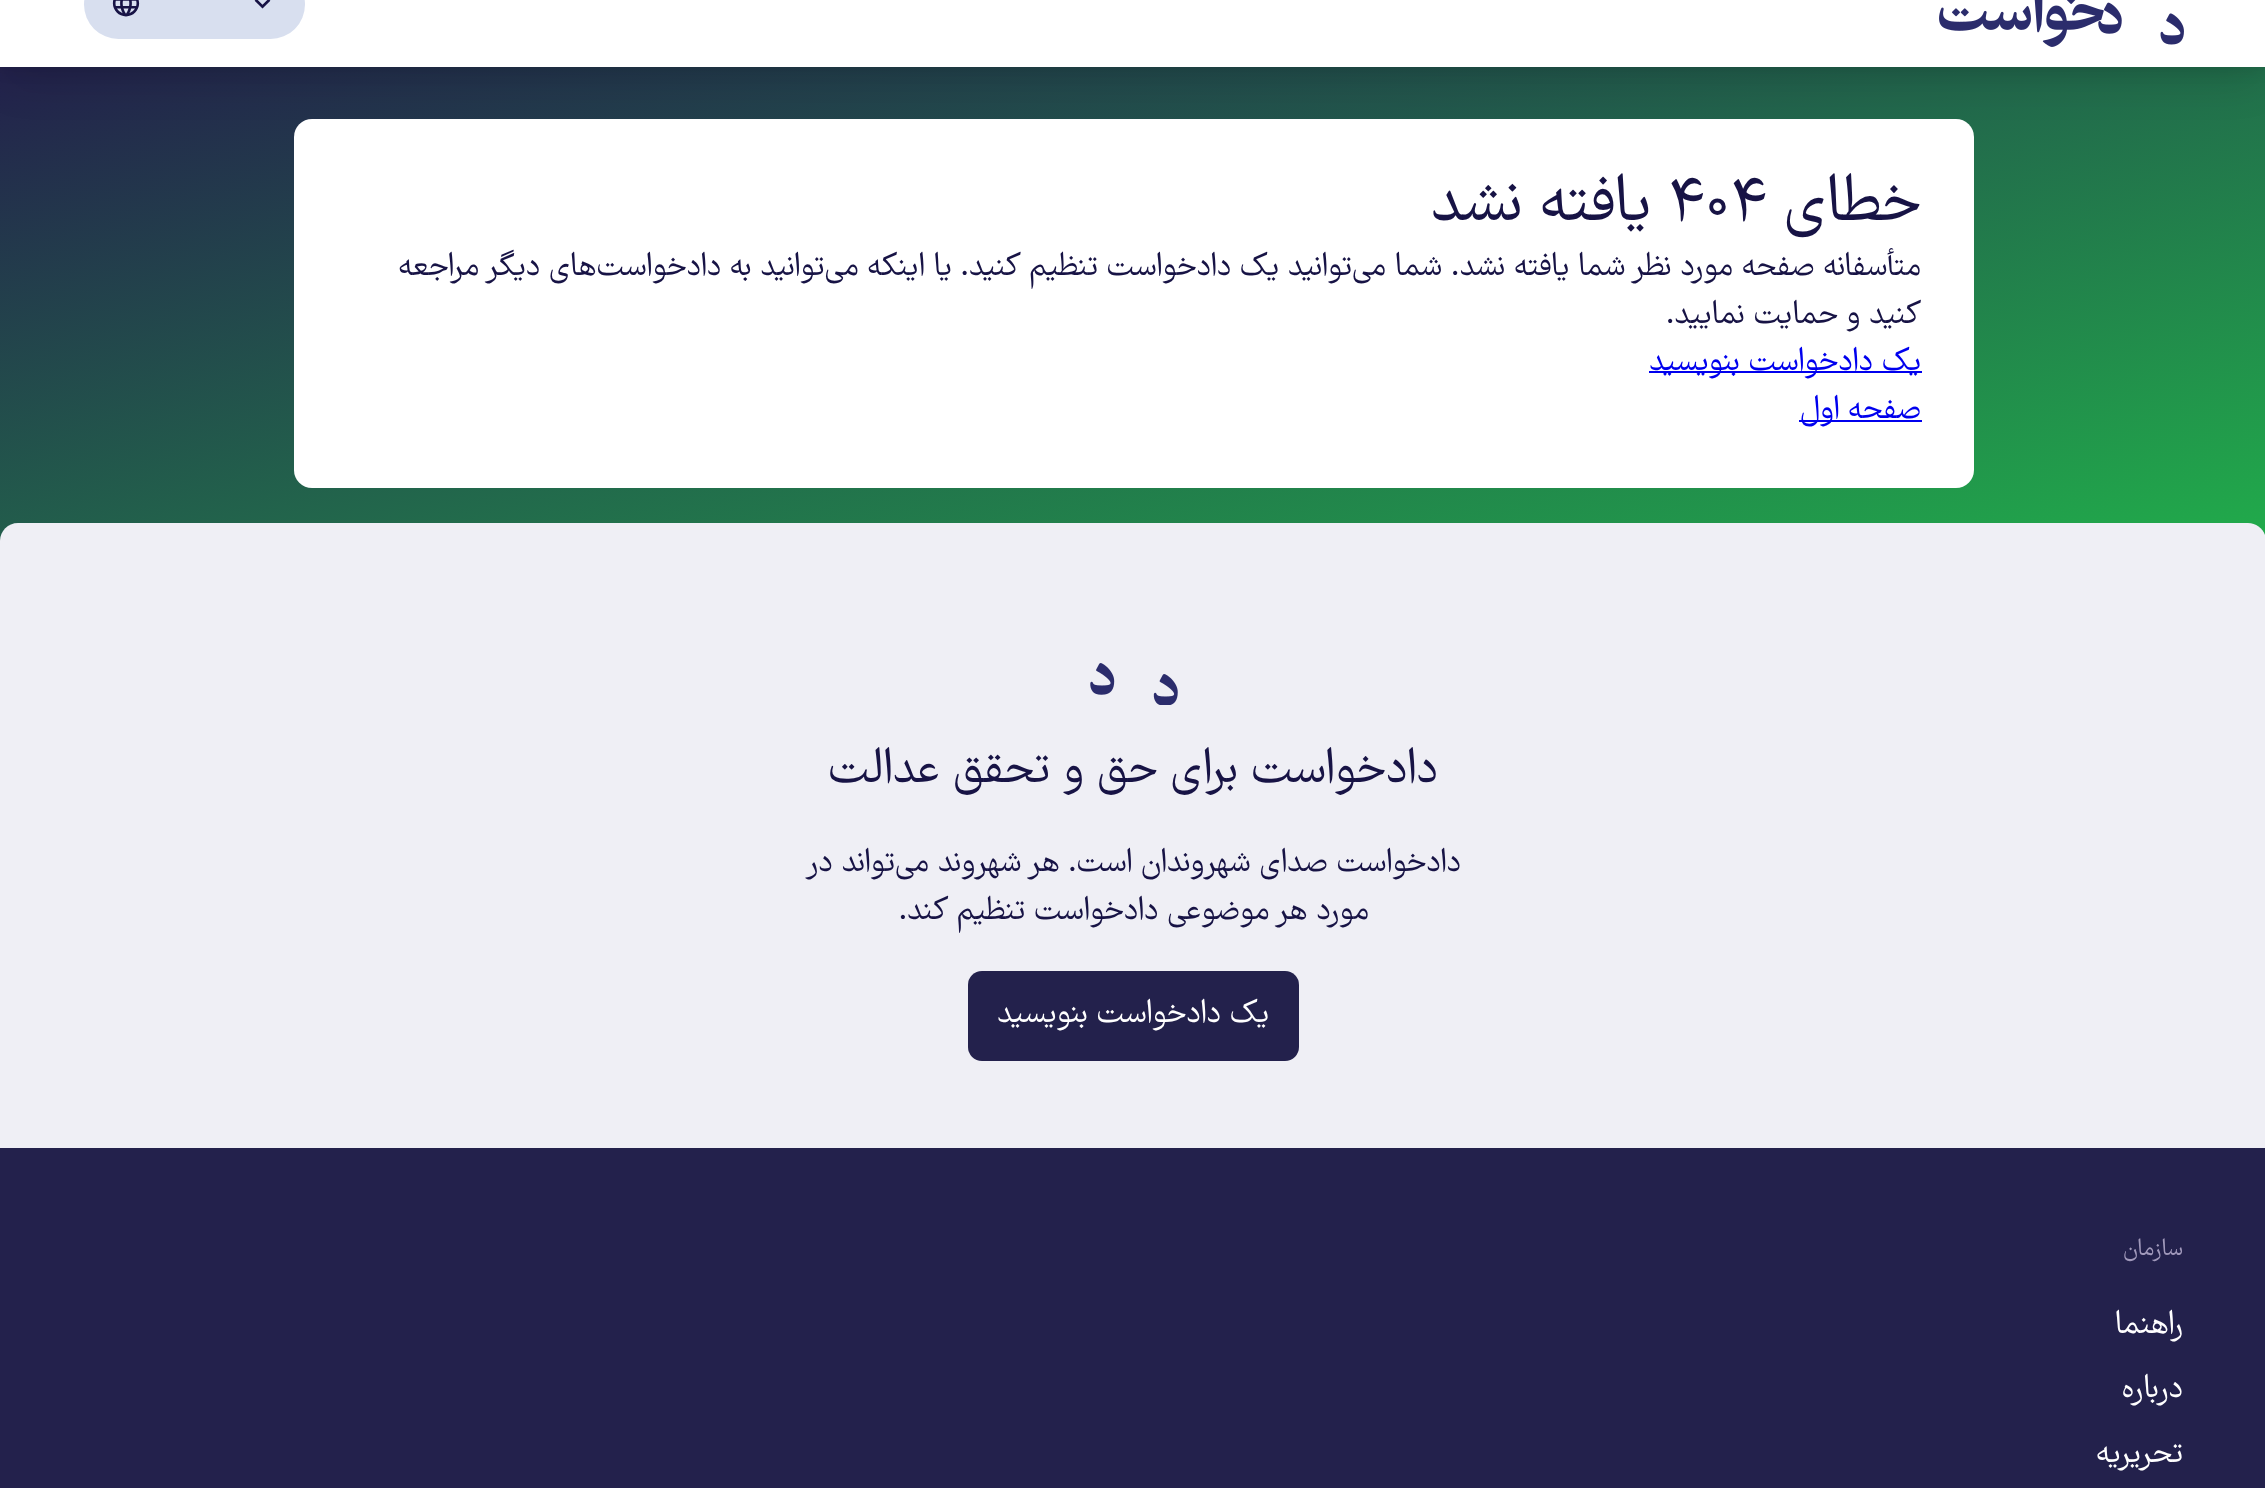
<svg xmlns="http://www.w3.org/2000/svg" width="2265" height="1488">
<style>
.a{font:68px 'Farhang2';direction:rtl;fill:#171345}
.b{font:68px 'Farhang2';fill:#171345}
.c{font:33.9px 'Farhang2';direction:rtl;fill:#171345}
.d{font:33.9px 'Farhang2';direction:rtl;fill:#00e}
.e{font:50.9px 'Farhang2';direction:rtl;fill:#171345}
.f{font:33.9px 'Farhang2';direction:rtl;fill:#fff}
.g{font:24.5px 'Farhang2';direction:rtl;fill:#a199bb}
</style>
<defs>
<linearGradient id="g1" gradientUnits="userSpaceOnUse" x1="998" y1="-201" x2="1268" y2="808"><stop offset="0" stop-color="#23214c"/><stop offset="1" stop-color="#21ab4b"/></linearGradient>
</defs>
<rect width="100%" height="100%" fill="#fff"/>
<path fill="url(#g1)" d="M0 67h2265v474H0z"/>
<path fill="#0000001a" filter="blur(9px)" d="M0 -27h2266v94H0z"/>
<rect fill="#fff" x="294" y="119" width="1680" height="369" rx="18"/>
<path fill="#0000001a" filter="blur(21px)" d="M7 -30h2252v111H7z"/>
<path fill="#fff" d="M0 0h2265v67H0z"/>
<image href="1.png" x="1939" y="0" width="245" height="47"/>
<rect fill="#d8dfef" x="84" y="-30" width="221" height="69" rx="34.5"/>
<image href="2.png" x="254" y="0" width="17" height="9"/>
<image href="3.png" x="112" y="0" width="28" height="17"/>
<path fill="#00e" d="M1649 371h273v2H1649z"/>
<path fill="#00e" d="M1799 420h123v2H1799z"/>
<path fill="#efeff5" d="M18 523h2230c10 0 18 8 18 18v607h-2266v-607c0-10 8-18 18-18z"/>
<image href="4.png" x="1090" y="663" width="88" height="42"/>
<rect fill="#23214c" x="968" y="971" width="331" height="90" rx="14"/>
<path fill="#23214c" d="M0 1148h2265v340H0z"/>
<text class="a" x="1921" y="220">خطای</text>
<text class="b" x="1668" y="220">۴۰۴</text>
<text class="a" x="1651" y="220">یافته نشد</text>
<text class="c" x="1921" y="275">متأسفانه صفحه مورد نظر شما یافته نشد. شما می‌توانید یک دادخواست تنظیم کنید. یا اینکه می‌توانید به دادخواست‌های دیگر مراجعه</text>
<text class="c" x="1921" y="323">کنید و حمایت نمایید.</text>
<text class="d" x="1921" y="370">یک دادخواست بنویسید</text>
<text class="d" x="1921" y="418">صفحه اول</text>
<text class="e" x="1438" y="782">دادخواست برای حق و تحقق عدالت</text>
<text class="c" x="1461" y="871">دادخواست صدای شهروندان است. هر شهروند می‌تواند در</text>
<text class="c" x="1369" y="919">مورد هر موضوعی دادخواست تنظیم کند.</text>
<text class="f" x="1269" y="1022">یک دادخواست بنویسید</text>
<text class="g" x="2183" y="1255">سازمان</text>
<text class="f" x="2183" y="1333">راهنما</text>
<text class="f" x="2183" y="1397">درباره</text>
<text class="f" x="2183" y="1462">تحریریه</text>
</svg>
